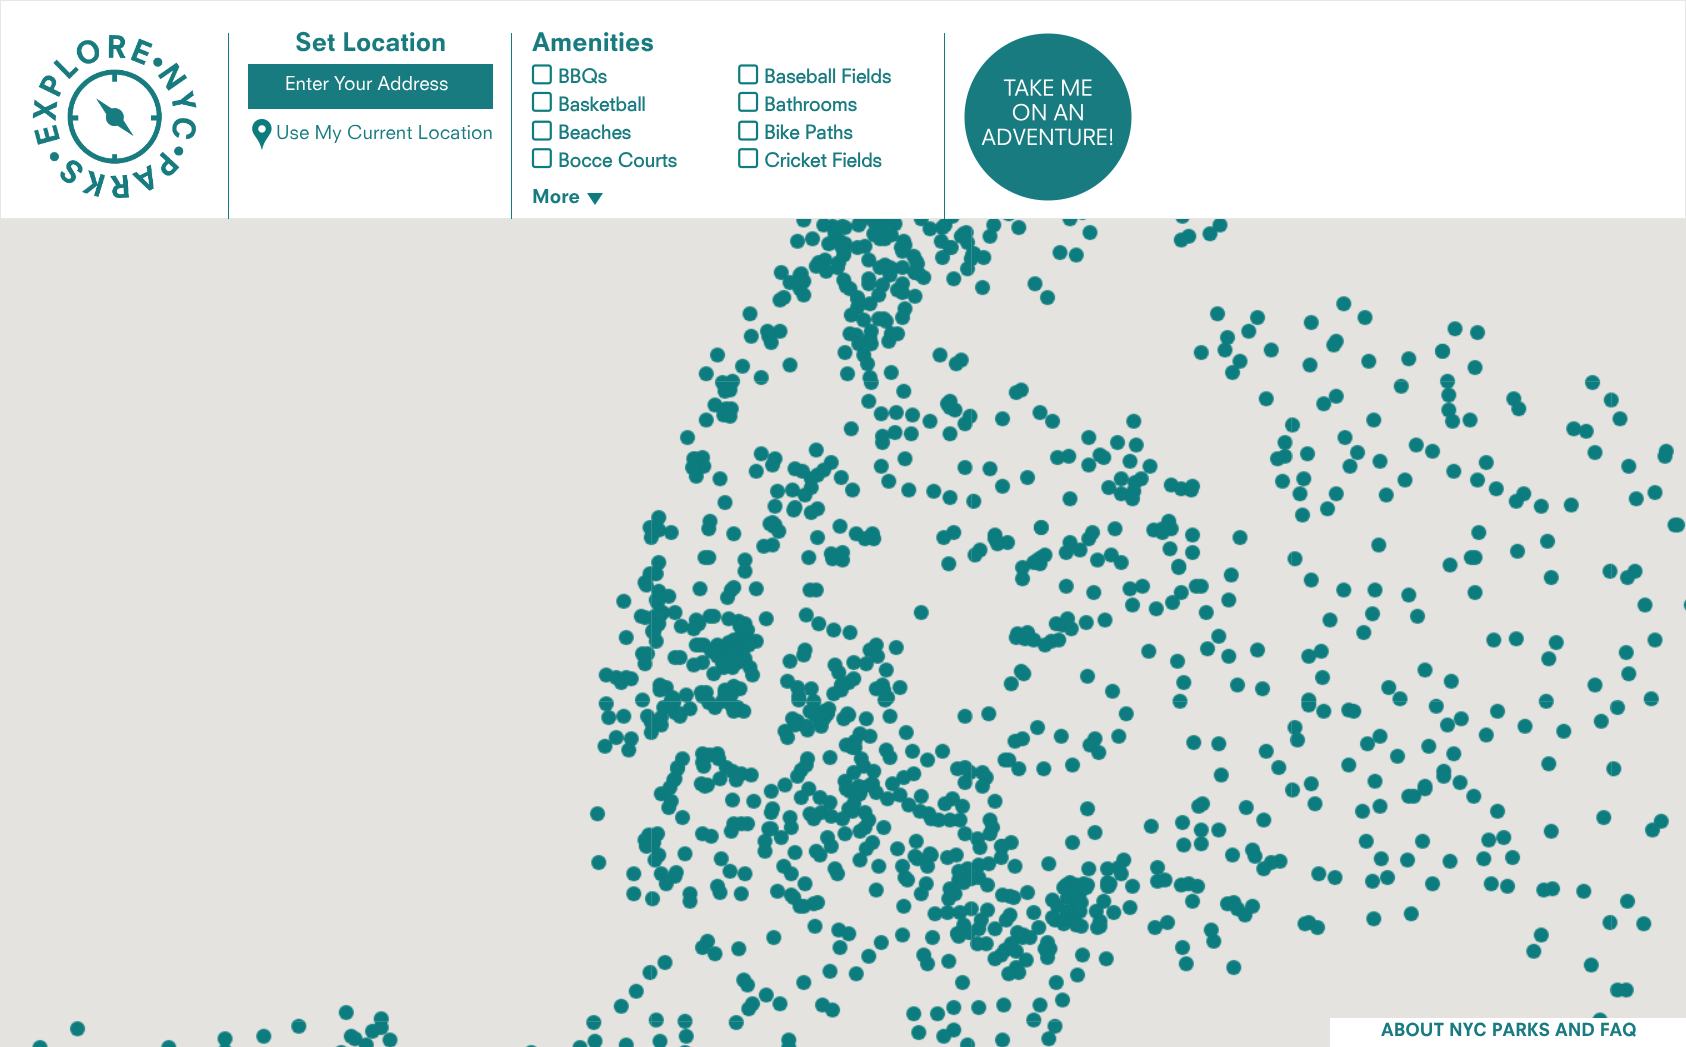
<svg xmlns="http://www.w3.org/2000/svg" width="1686" height="1047">
<style>
.a{font:900 25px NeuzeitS;fill:#187b80}
.b{font:18.75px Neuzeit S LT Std;fill:#fff}
.c{font:18.75px Neuzeit S LT Std;fill:#187b80}
.d{font:bold 18.75px Neuzeit S LT Std;fill:#187b80}
.e{font:900 18.75px NeuzeitS;fill:#187b80}
.f{font:900 17.5px NeuzeitS;fill:#187b80}
</style>
<rect width="100%" height="100%" fill="#e5e3df"/>
<path fill="#fff" stroke="#e7e7e7" d="M0.5 0.5h1685v218H0.5z"/>
<image href="1.png" x="32" y="35" width="165" height="163"/>
<path fill="#187b80" d="M228 33h1v186H228z"/>
<path fill="#187b80" d="M248 64h245v45H248z"/>
<image href="2.png" x="252" y="119" width="20" height="31"/>
<path fill="#187b80" d="M511 33h1v186H511z"/>
<image href="3.png" x="531" y="64" width="21" height="21"/>
<image href="4.png" x="738" y="64" width="21" height="21"/>
<image href="5.png" x="531" y="91" width="21" height="21"/>
<image href="6.png" x="738" y="91" width="21" height="21"/>
<image href="7.png" x="531" y="120" width="21" height="21"/>
<image href="8.png" x="738" y="120" width="21" height="21"/>
<image href="9.png" x="531" y="148" width="21" height="21"/>
<image href="10.png" x="738" y="148" width="21" height="21"/>
<path fill="#0d7c7f" d="M603 193l-8 12l-8-12z"/>
<path fill="#187b80" d="M944 33h1v186H944z"/>
<image href="11.png" x="964" y="33" width="168" height="168"/>
<image href="16.png" x="651" y="381" width="321" height="321"/>
<image href="12.png" x="698" y="219" width="274" height="163"/>
<image href="13.png" x="971" y="219" width="308" height="162"/>
<image href="14.png" x="1302" y="296" width="299" height="86"/>
<image href="15.png" x="598" y="519" width="54" height="183"/>
<image href="17.png" x="971" y="382" width="321" height="320"/>
<image href="22.png" x="971" y="701" width="321" height="321"/>
<image href="18.png" x="1291" y="381" width="321" height="321"/>
<image href="23.png" x="1291" y="701" width="321" height="317"/>
<image href="19.png" x="1611" y="392" width="75" height="310"/>
<image href="21.png" x="651" y="701" width="321" height="321"/>
<image href="20.png" x="338" y="701" width="314" height="321"/>
<image href="24.png" x="1611" y="701" width="58" height="297"/>
<image href="25.png" x="292" y="1018" width="13" height="4"/>
<image href="26.png" x="32" y="1021" width="275" height="26"/>
<image href="29.png" x="971" y="1021" width="92" height="26"/>
<image href="28.png" x="651" y="1021" width="321" height="26"/>
<image href="27.png" x="335" y="1021" width="317" height="26"/>
<path fill="#fff" d="M1330 1018h356v29H1330z"/>
<text class="a" x="295" y="51">Set Location</text>
<text class="b" x="285" y="90">Enter Your Address</text>
<text class="c" x="276" y="139">Use My Current Location</text>
<text class="a" x="532" y="51">Amenities</text>
<text class="d" x="558" y="83">BBQs</text>
<text class="d" x="764" y="83">Baseball Fields</text>
<text class="d" x="558" y="111">Basketball</text>
<text class="d" x="764" y="111">Bathrooms</text>
<text class="d" x="558" y="139">Beaches</text>
<text class="d" x="764" y="139">Bike Paths</text>
<text class="d" x="558" y="167">Bocce Courts</text>
<text class="d" x="764" y="167">Cricket Fields</text>
<text class="e" x="532" y="203">More</text>
<text class="f" x="1381" y="1036">ABOUT NYC PARKS AND FAQ</text>
</svg>
